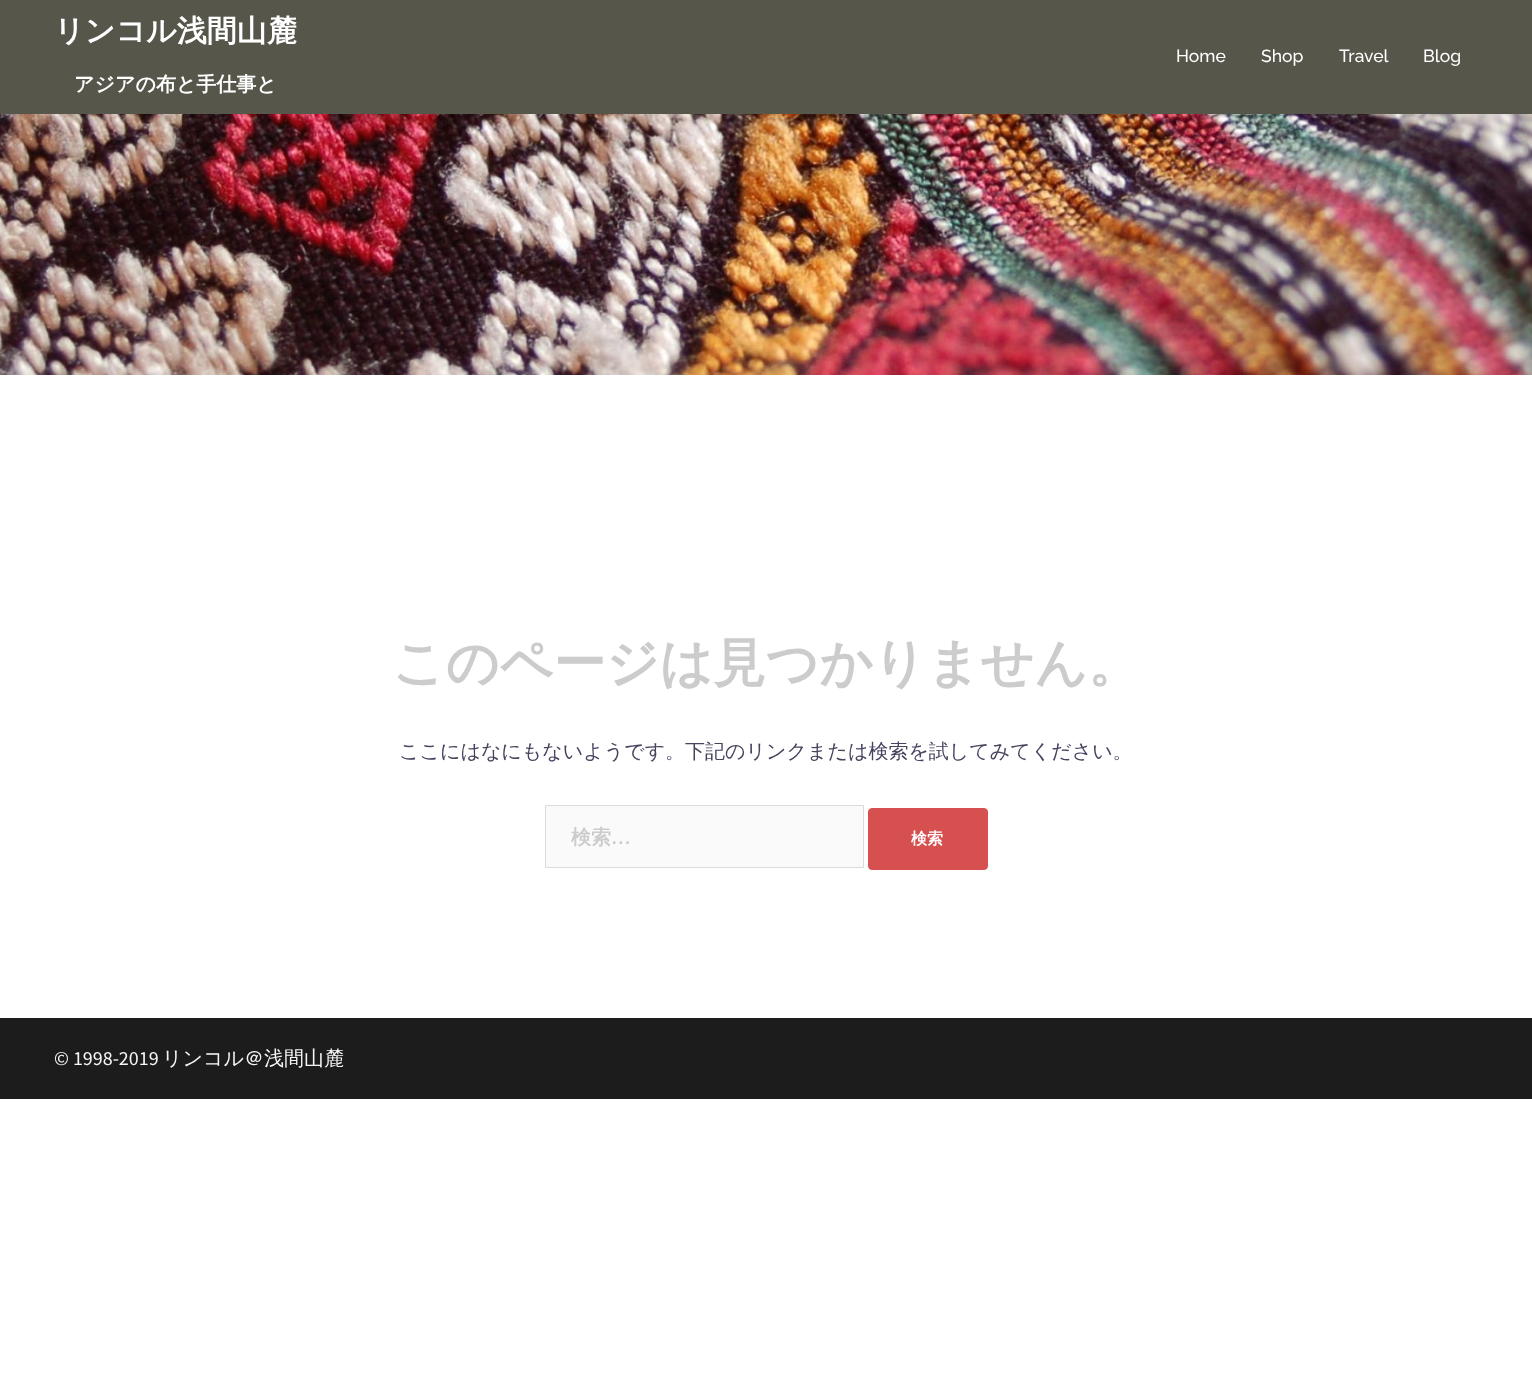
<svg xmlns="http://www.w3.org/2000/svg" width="1532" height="1380">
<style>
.a{font:bold 30px WenQuanYi Zen Hei;fill:#fff}
.b{font:bold 20px WenQuanYi Zen Hei;fill:#fff}
.c{font:500 17.5px Raleway;fill:#fff}
.d{font:bold 52.5px WenQuanYi Zen Hei;fill:#ccc}
.e{font:500 20px WenQuanYi Zen Hei;fill:#47425d}
.f{font:bold 20px WenQuanYi Zen Hei;fill:#ccc}
.g{font:600 20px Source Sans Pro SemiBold;fill:#ccc}
.h{font:bold 16px WenQuanYi Zen Hei;fill:#fff}
.i{font:20px Source Sans Pro;fill:#f5f5f5}
.j{font:500 20px WenQuanYi Zen Hei;fill:#f5f5f5}
</style>
<rect width="100%" height="100%" fill="#fff"/>
<path fill="#56564b" d="M0 0h1532v114H0z"/>
<image href="1.png" x="0" y="114" width="1532" height="261"/>
<path fill="#fafafa" stroke="#dbdbdb" d="M545.5 805.5h318v62H545.5z"/>
<rect fill="#d65050" stroke="#d65050" x="868.5" y="808.5" width="119" height="61" rx="3.5"/>
<path fill="#1c1c1c" d="M0 1018h1532v81H0z"/>
<text class="a" x="54" y="41">リンコル浅間山麓</text>
<text class="b" x="74" y="91">アジアの布と手仕事と</text>
<text class="c" x="1176" y="62">Home</text>
<text class="c" x="1261" y="62">Shop</text>
<text class="c" x="1339" y="62">Travel</text>
<text class="c" x="1423" y="62">Blog</text>
<text class="d" x="392" y="681">このページは見つかりません。</text>
<text class="e" x="399" y="758">ここにはなにもないようです。下記のリンクまたは検索を試してみてください。</text>
<text class="f" x="571" y="844">検索</text>
<text class="g" x="611" y="844">…</text>
<text class="h" x="911" y="844">検索</text>
<text class="i" x="54" y="1065">© 1998-2019</text>
<text class="j" x="162" y="1065">リンコル＠浅間山麓</text>
</svg>
